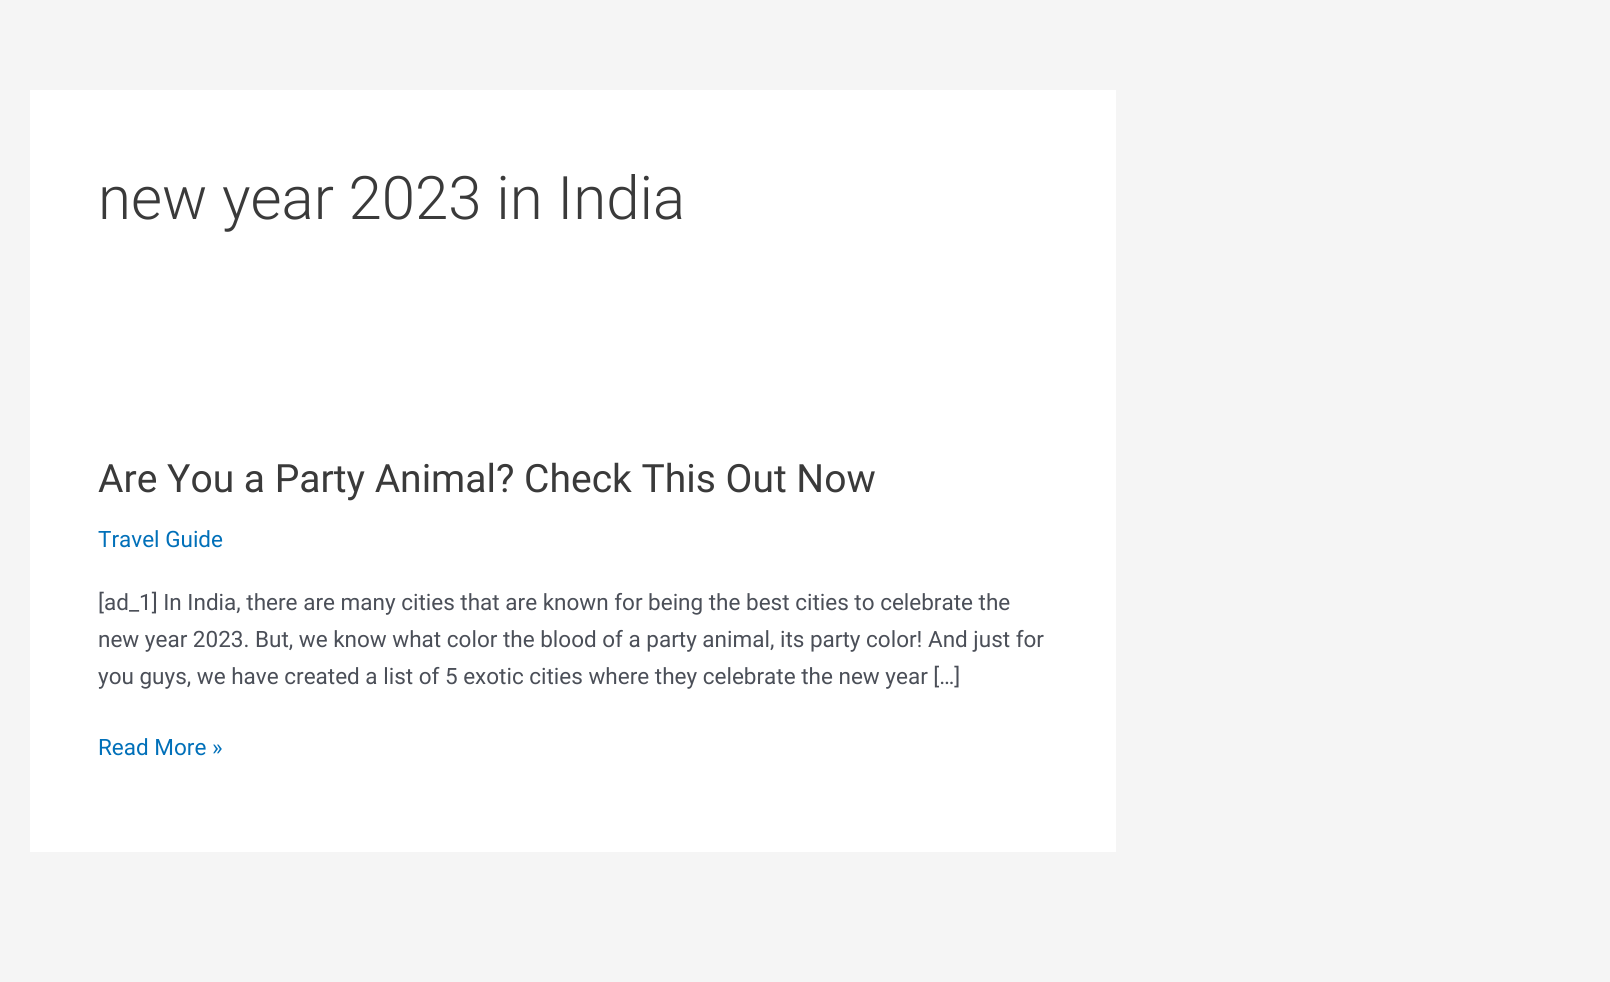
#include <cairo/cairo.h>
#include <math.h>
#include <stddef.h>


static void draw(cairo_t *cr) {
  cairo_set_source_rgb(cr, 245 / 255.0, 245 / 255.0, 245 / 255.0);
  cairo_paint(cr);
  cairo_set_source_rgb(cr, 1, 1, 1);
  cairo_rectangle(cr, 30, 90, 1086, 762);
  cairo_fill(cr);
  cairo_select_font_face(cr, "Roboto Light", CAIRO_FONT_SLANT_NORMAL, CAIRO_FONT_WEIGHT_NORMAL);
  cairo_set_font_size(cr, 60);
  cairo_set_source_rgb(cr, 58 / 255.0, 58 / 255.0, 58 / 255.0);
  cairo_move_to(cr, 98, 219);
  cairo_show_text(cr, "new year 2023 in India");
  cairo_select_font_face(cr, "Roboto", CAIRO_FONT_SLANT_NORMAL, CAIRO_FONT_WEIGHT_NORMAL);
  cairo_set_font_size(cr, 39);
  cairo_move_to(cr, 98, 492);
  cairo_show_text(cr, "Are You a Party Animal? Check This Out Now");
  cairo_set_font_size(cr, 22.5);
  cairo_set_source_rgb(cr, 1 / 255.0, 112 / 255.0, 185 / 255.0);
  cairo_move_to(cr, 98, 547);
  cairo_show_text(cr, "Travel Guide");
  cairo_set_source_rgb(cr, 75 / 255.0, 79 / 255.0, 88 / 255.0);
  cairo_move_to(cr, 98, 610);
  cairo_show_text(cr, "[ad_1] In India, there are many cities that are known for being the best cities to celebrate the");
  cairo_move_to(cr, 98, 647);
  cairo_show_text(cr, "new year 2023. But, we know what color the blood of a party animal, its party color! And just for");
  cairo_move_to(cr, 98, 684);
  cairo_show_text(cr, "you guys, we have created a list of 5 exotic cities where they celebrate the new year […]");
  cairo_set_source_rgb(cr, 1 / 255.0, 112 / 255.0, 185 / 255.0);
  cairo_move_to(cr, 98, 755);
  cairo_show_text(cr, "Read More »");
}

int main(void) {
  cairo_surface_t *surface = cairo_image_surface_create(CAIRO_FORMAT_RGB24, 1610, 982);
  cairo_t *cr = cairo_create(surface);
  cairo_font_options_t *options = cairo_font_options_create();
  cairo_font_options_set_hint_metrics(options, CAIRO_HINT_METRICS_OFF);
  cairo_font_options_set_hint_style(options, CAIRO_HINT_STYLE_NONE);
  cairo_set_font_options(cr, options);
  cairo_set_miter_limit(cr, 4);
  draw(cr);
  cairo_surface_write_to_png(surface, "out.png");
  cairo_font_options_destroy(options);
  cairo_destroy(cr);
  cairo_surface_destroy(surface);
  return 0;
}
